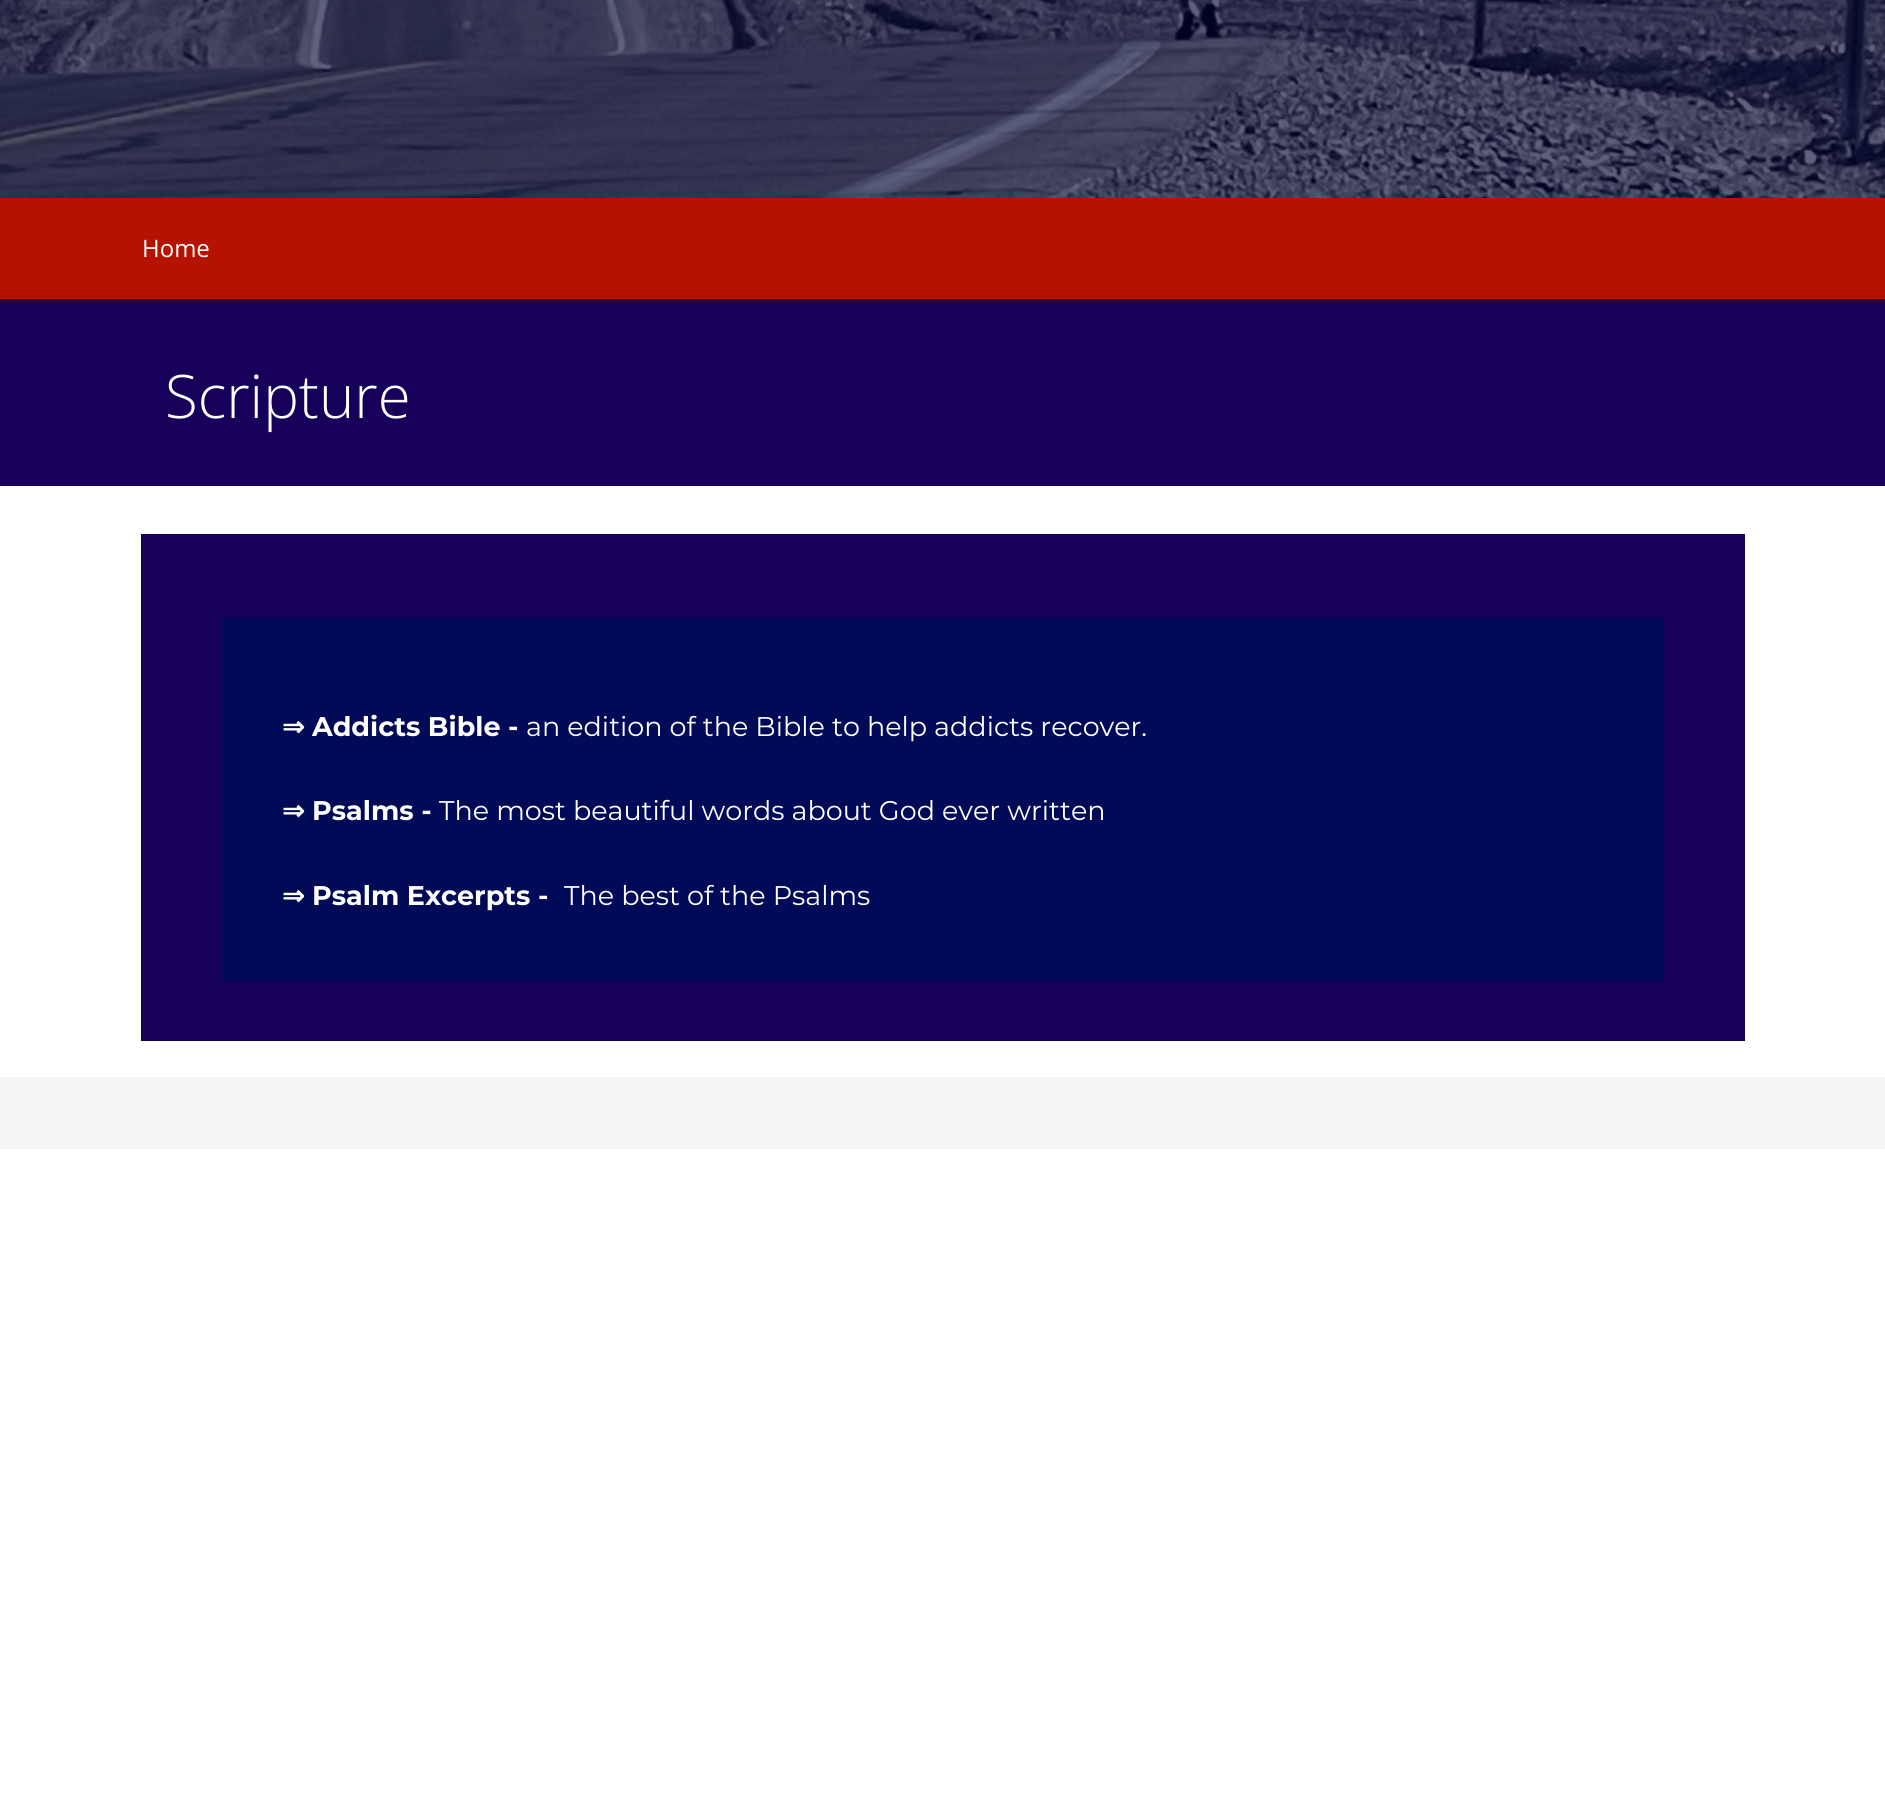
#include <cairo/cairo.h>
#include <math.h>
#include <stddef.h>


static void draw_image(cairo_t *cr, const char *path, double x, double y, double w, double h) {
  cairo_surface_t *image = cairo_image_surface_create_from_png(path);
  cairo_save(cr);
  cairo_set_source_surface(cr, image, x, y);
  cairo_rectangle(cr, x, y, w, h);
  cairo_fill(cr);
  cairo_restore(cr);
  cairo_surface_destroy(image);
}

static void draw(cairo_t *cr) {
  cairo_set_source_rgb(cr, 1, 1, 1);
  cairo_paint(cr);
  draw_image(cr, "images/1.png", 0, 0, 1885, 198);
  cairo_set_source_rgb(cr, 181 / 255.0, 18 / 255.0, 0);
  cairo_rectangle(cr, 0, 198, 1885, 101);
  cairo_fill(cr);
  cairo_set_source_rgb(cr, 23 / 255.0, 0, 89 / 255.0);
  cairo_rectangle(cr, 0, 299, 1885, 187);
  cairo_fill(cr);
  cairo_rectangle(cr, 141, 534, 1604, 507);
  cairo_fill(cr);
  cairo_set_source_rgb(cr, 0, 10 / 255.0, 86 / 255.0);
  cairo_rectangle(cr, 222, 618, 1442, 363);
  cairo_fill(cr);
  cairo_set_source_rgb(cr, 245 / 255.0, 245 / 255.0, 245 / 255.0);
  cairo_rectangle(cr, 0, 1077, 1885, 72);
  cairo_fill(cr);
  cairo_select_font_face(cr, "Open Sans", CAIRO_FONT_SLANT_NORMAL, CAIRO_FONT_WEIGHT_NORMAL);
  cairo_set_font_size(cr, 24);
  cairo_set_source_rgb(cr, 1, 1, 1);
  cairo_move_to(cr, 142, 257);
  cairo_show_text(cr, "Home");
  cairo_select_font_face(cr, "Open Sans Light", CAIRO_FONT_SLANT_NORMAL, CAIRO_FONT_WEIGHT_NORMAL);
  cairo_set_font_size(cr, 60);
  cairo_move_to(cr, 165, 418);
  cairo_show_text(cr, "Scripture");
  cairo_select_font_face(cr, "DejaVu Sans", CAIRO_FONT_SLANT_NORMAL, CAIRO_FONT_WEIGHT_BOLD);
  cairo_set_font_size(cr, 27);
  cairo_move_to(cr, 282, 736);
  cairo_show_text(cr, "⇒");
  cairo_select_font_face(cr, "Montserrat", CAIRO_FONT_SLANT_NORMAL, CAIRO_FONT_WEIGHT_BOLD);
  cairo_move_to(cr, 312, 736);
  cairo_show_text(cr, "Addicts Bible -");
  cairo_select_font_face(cr, "Montserrat", CAIRO_FONT_SLANT_NORMAL, CAIRO_FONT_WEIGHT_NORMAL);
  cairo_move_to(cr, 526, 736);
  cairo_show_text(cr, "an edition of the Bible to help addicts recover.");
  cairo_select_font_face(cr, "DejaVu Sans", CAIRO_FONT_SLANT_NORMAL, CAIRO_FONT_WEIGHT_BOLD);
  cairo_move_to(cr, 282, 820);
  cairo_show_text(cr, "⇒");
  cairo_select_font_face(cr, "Montserrat", CAIRO_FONT_SLANT_NORMAL, CAIRO_FONT_WEIGHT_BOLD);
  cairo_move_to(cr, 312, 820);
  cairo_show_text(cr, "Psalms -");
  cairo_select_font_face(cr, "Montserrat", CAIRO_FONT_SLANT_NORMAL, CAIRO_FONT_WEIGHT_NORMAL);
  cairo_move_to(cr, 439, 820);
  cairo_show_text(cr, "The most beautiful words about God ever written");
  cairo_select_font_face(cr, "DejaVu Sans", CAIRO_FONT_SLANT_NORMAL, CAIRO_FONT_WEIGHT_BOLD);
  cairo_move_to(cr, 282, 905);
  cairo_show_text(cr, "⇒");
  cairo_select_font_face(cr, "Montserrat", CAIRO_FONT_SLANT_NORMAL, CAIRO_FONT_WEIGHT_BOLD);
  cairo_move_to(cr, 312, 905);
  cairo_show_text(cr, "Psalm Excerpts -");
  cairo_select_font_face(cr, "Montserrat", CAIRO_FONT_SLANT_NORMAL, CAIRO_FONT_WEIGHT_NORMAL);
  cairo_move_to(cr, 564, 905);
  cairo_show_text(cr, "The best of the Psalms");
}

int main(void) {
  cairo_surface_t *surface = cairo_image_surface_create(CAIRO_FORMAT_RGB24, 1885, 1798);
  cairo_t *cr = cairo_create(surface);
  cairo_font_options_t *options = cairo_font_options_create();
  cairo_font_options_set_hint_metrics(options, CAIRO_HINT_METRICS_OFF);
  cairo_font_options_set_hint_style(options, CAIRO_HINT_STYLE_NONE);
  cairo_set_font_options(cr, options);
  cairo_set_miter_limit(cr, 4);
  draw(cr);
  cairo_surface_write_to_png(surface, "out.png");
  cairo_font_options_destroy(options);
  cairo_destroy(cr);
  cairo_surface_destroy(surface);
  return 0;
}
